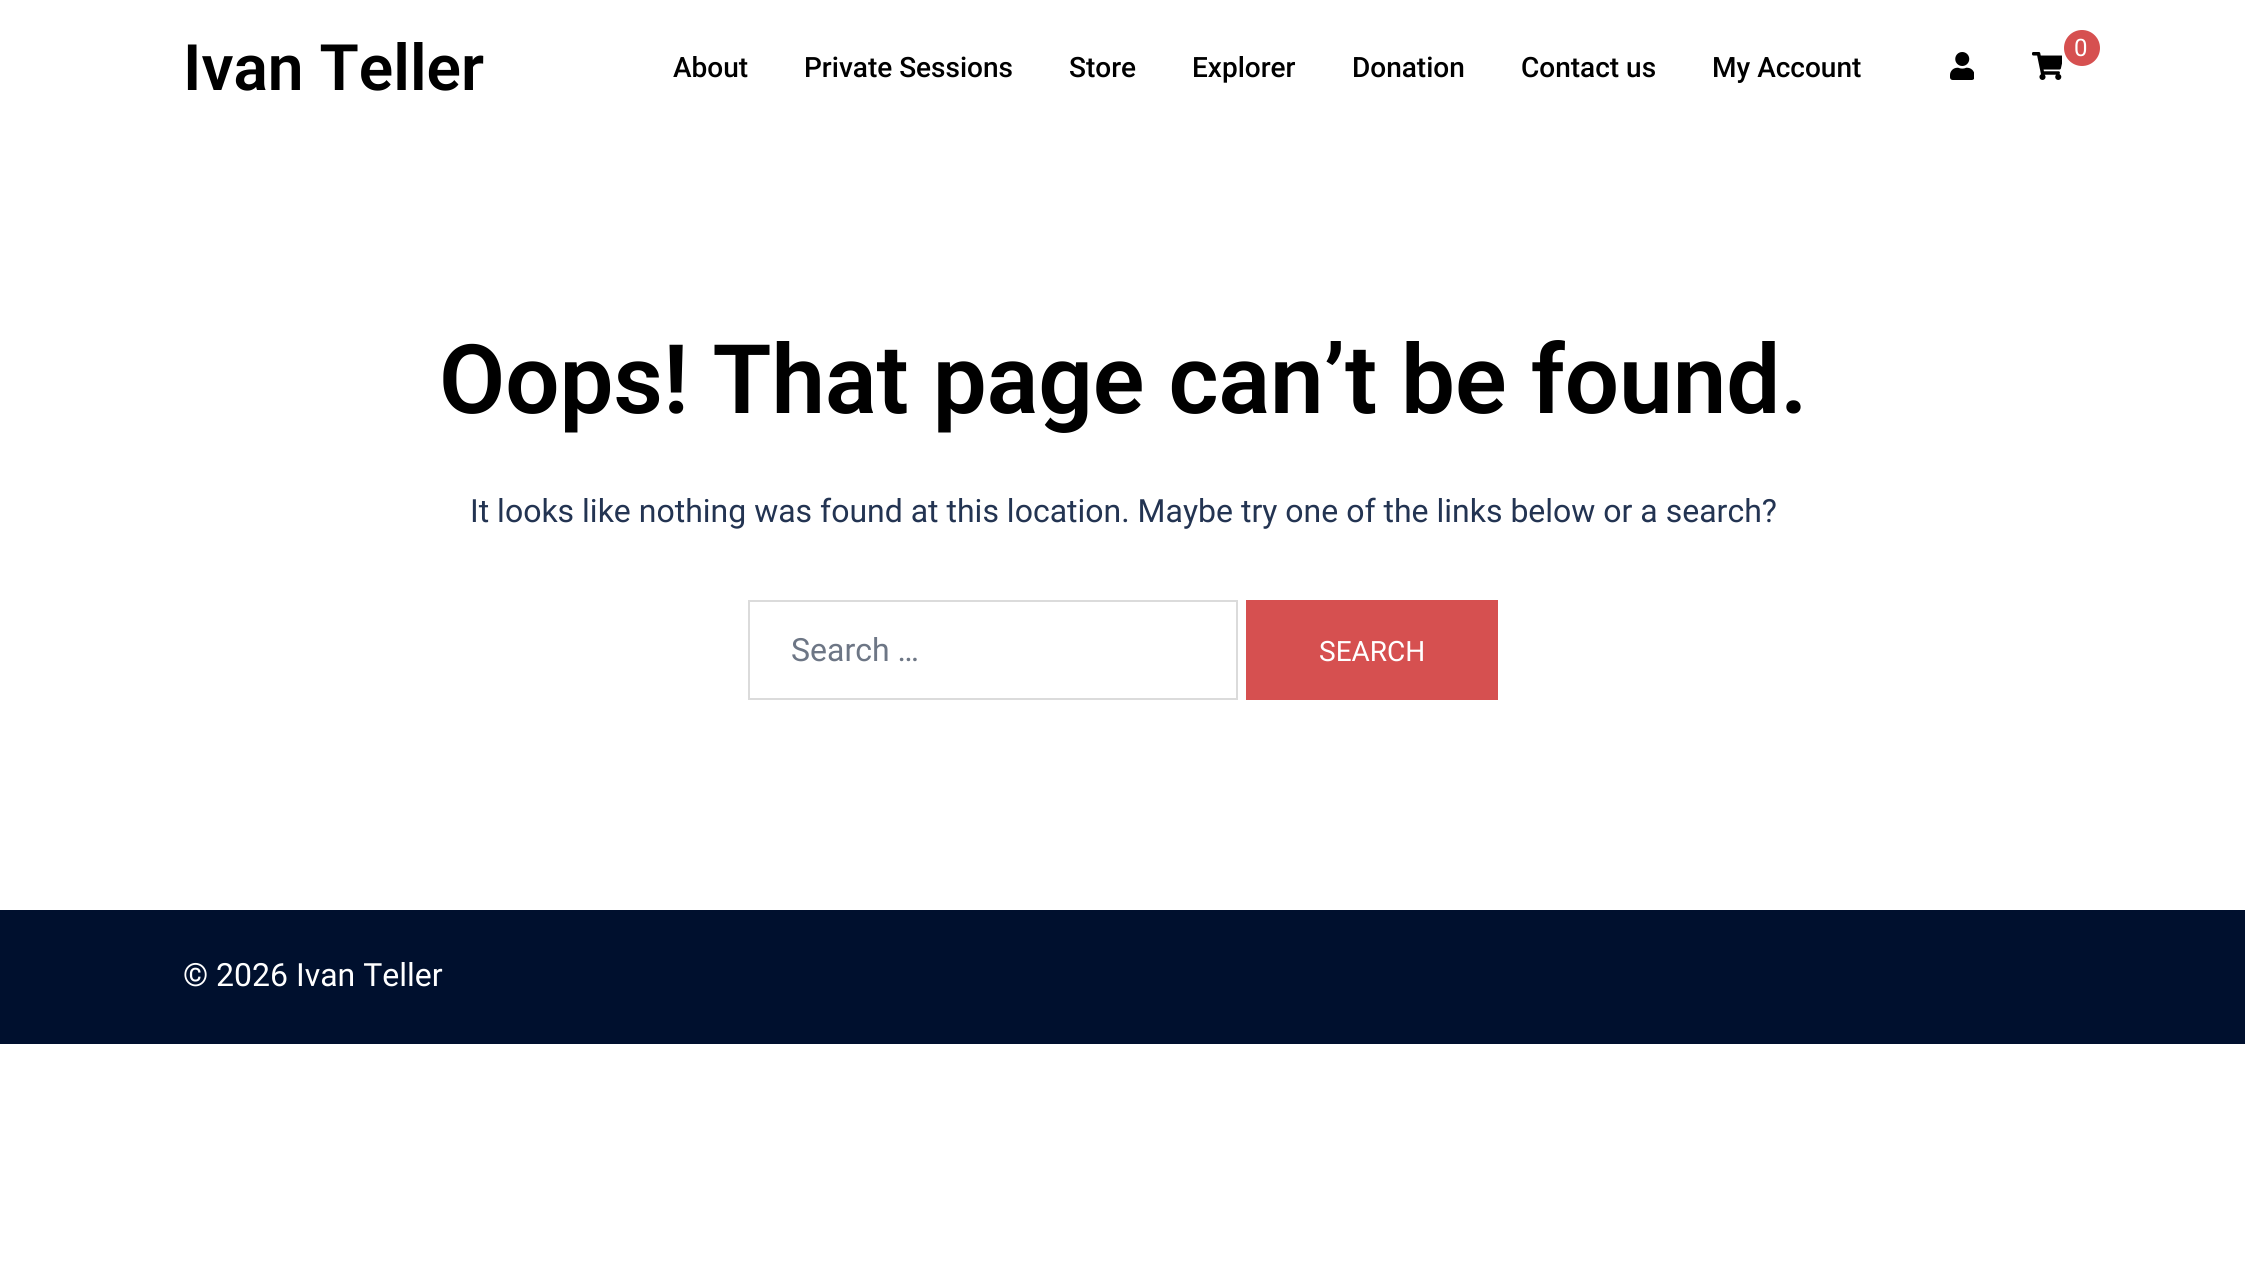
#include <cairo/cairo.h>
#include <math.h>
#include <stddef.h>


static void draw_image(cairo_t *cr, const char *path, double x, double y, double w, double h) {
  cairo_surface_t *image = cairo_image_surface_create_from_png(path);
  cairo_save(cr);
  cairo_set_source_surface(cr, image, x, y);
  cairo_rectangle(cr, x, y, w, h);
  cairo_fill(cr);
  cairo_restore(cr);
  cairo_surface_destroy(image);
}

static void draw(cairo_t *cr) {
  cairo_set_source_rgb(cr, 1, 1, 1);
  cairo_paint(cr);
  cairo_set_source_rgb(cr, 214 / 255.0, 80 / 255.0, 80 / 255.0);
  cairo_arc(cr, 2082, 48, 18, 0, 2 * M_PI);
  cairo_fill(cr);
  draw_image(cr, "images/1.png", 2032, 52, 30, 28);
  draw_image(cr, "images/2.png", 1950, 52, 24, 28);
  cairo_rectangle(cr, 749, 601, 488, 98);
  cairo_set_source_rgb(cr, 219 / 255.0, 219 / 255.0, 219 / 255.0);
  cairo_stroke(cr);
  cairo_set_source_rgb(cr, 214 / 255.0, 80 / 255.0, 80 / 255.0);
  cairo_rectangle(cr, 1246, 600, 252, 100);
  cairo_fill(cr);
  cairo_set_source_rgb(cr, 0, 16 / 255.0, 46 / 255.0);
  cairo_rectangle(cr, 0, 910, 2245, 134);
  cairo_fill(cr);
  cairo_select_font_face(cr, "Roboto SemiBold", CAIRO_FONT_SLANT_NORMAL, CAIRO_FONT_WEIGHT_NORMAL);
  cairo_set_font_size(cr, 64);
  cairo_set_source_rgb(cr, 0, 0, 0);
  cairo_move_to(cr, 183, 90);
  cairo_show_text(cr, "Ivan Teller");
  cairo_select_font_face(cr, "Roboto Medium", CAIRO_FONT_SLANT_NORMAL, CAIRO_FONT_WEIGHT_NORMAL);
  cairo_set_font_size(cr, 28);
  cairo_move_to(cr, 673, 77);
  cairo_show_text(cr, "About");
  cairo_move_to(cr, 804, 77);
  cairo_show_text(cr, "Private Sessions");
  cairo_move_to(cr, 1069, 77);
  cairo_show_text(cr, "Store");
  cairo_move_to(cr, 1192, 77);
  cairo_show_text(cr, "Explorer");
  cairo_move_to(cr, 1352, 77);
  cairo_show_text(cr, "Donation");
  cairo_move_to(cr, 1521, 77);
  cairo_show_text(cr, "Contact us");
  cairo_move_to(cr, 1712, 77);
  cairo_show_text(cr, "My Account");
  cairo_select_font_face(cr, "Roboto", CAIRO_FONT_SLANT_NORMAL, CAIRO_FONT_WEIGHT_NORMAL);
  cairo_set_font_size(cr, 24);
  cairo_set_source_rgb(cr, 1, 1, 1);
  cairo_move_to(cr, 2074, 56);
  cairo_show_text(cr, "0");
  cairo_select_font_face(cr, "Roboto SemiBold", CAIRO_FONT_SLANT_NORMAL, CAIRO_FONT_WEIGHT_NORMAL);
  cairo_set_font_size(cr, 96);
  cairo_set_source_rgb(cr, 0, 0, 0);
  cairo_move_to(cr, 439, 413);
  cairo_show_text(cr, "Oops! That page can’t be found.");
  cairo_select_font_face(cr, "Roboto", CAIRO_FONT_SLANT_NORMAL, CAIRO_FONT_WEIGHT_NORMAL);
  cairo_set_font_size(cr, 32);
  cairo_set_source_rgb(cr, 35 / 255.0, 52 / 255.0, 82 / 255.0);
  cairo_move_to(cr, 470, 522);
  cairo_show_text(cr, "It looks like nothing was found at this location. Maybe try one of the links below or a search?");
  cairo_set_source_rgb(cr, 109 / 255.0, 118 / 255.0, 133 / 255.0);
  cairo_move_to(cr, 791, 661);
  cairo_show_text(cr, "Search …");
  cairo_set_font_size(cr, 28);
  cairo_set_source_rgb(cr, 1, 1, 1);
  cairo_move_to(cr, 1319, 661);
  cairo_show_text(cr, "SEARCH");
  cairo_set_font_size(cr, 32);
  cairo_move_to(cr, 183, 986);
  cairo_show_text(cr, "© 2026 Ivan Teller");
}

int main(void) {
  cairo_surface_t *surface = cairo_image_surface_create(CAIRO_FORMAT_RGB24, 2245, 1288);
  cairo_t *cr = cairo_create(surface);
  cairo_font_options_t *options = cairo_font_options_create();
  cairo_font_options_set_hint_metrics(options, CAIRO_HINT_METRICS_OFF);
  cairo_font_options_set_hint_style(options, CAIRO_HINT_STYLE_NONE);
  cairo_set_font_options(cr, options);
  cairo_set_miter_limit(cr, 4);
  draw(cr);
  cairo_surface_write_to_png(surface, "out.png");
  cairo_font_options_destroy(options);
  cairo_destroy(cr);
  cairo_surface_destroy(surface);
  return 0;
}
